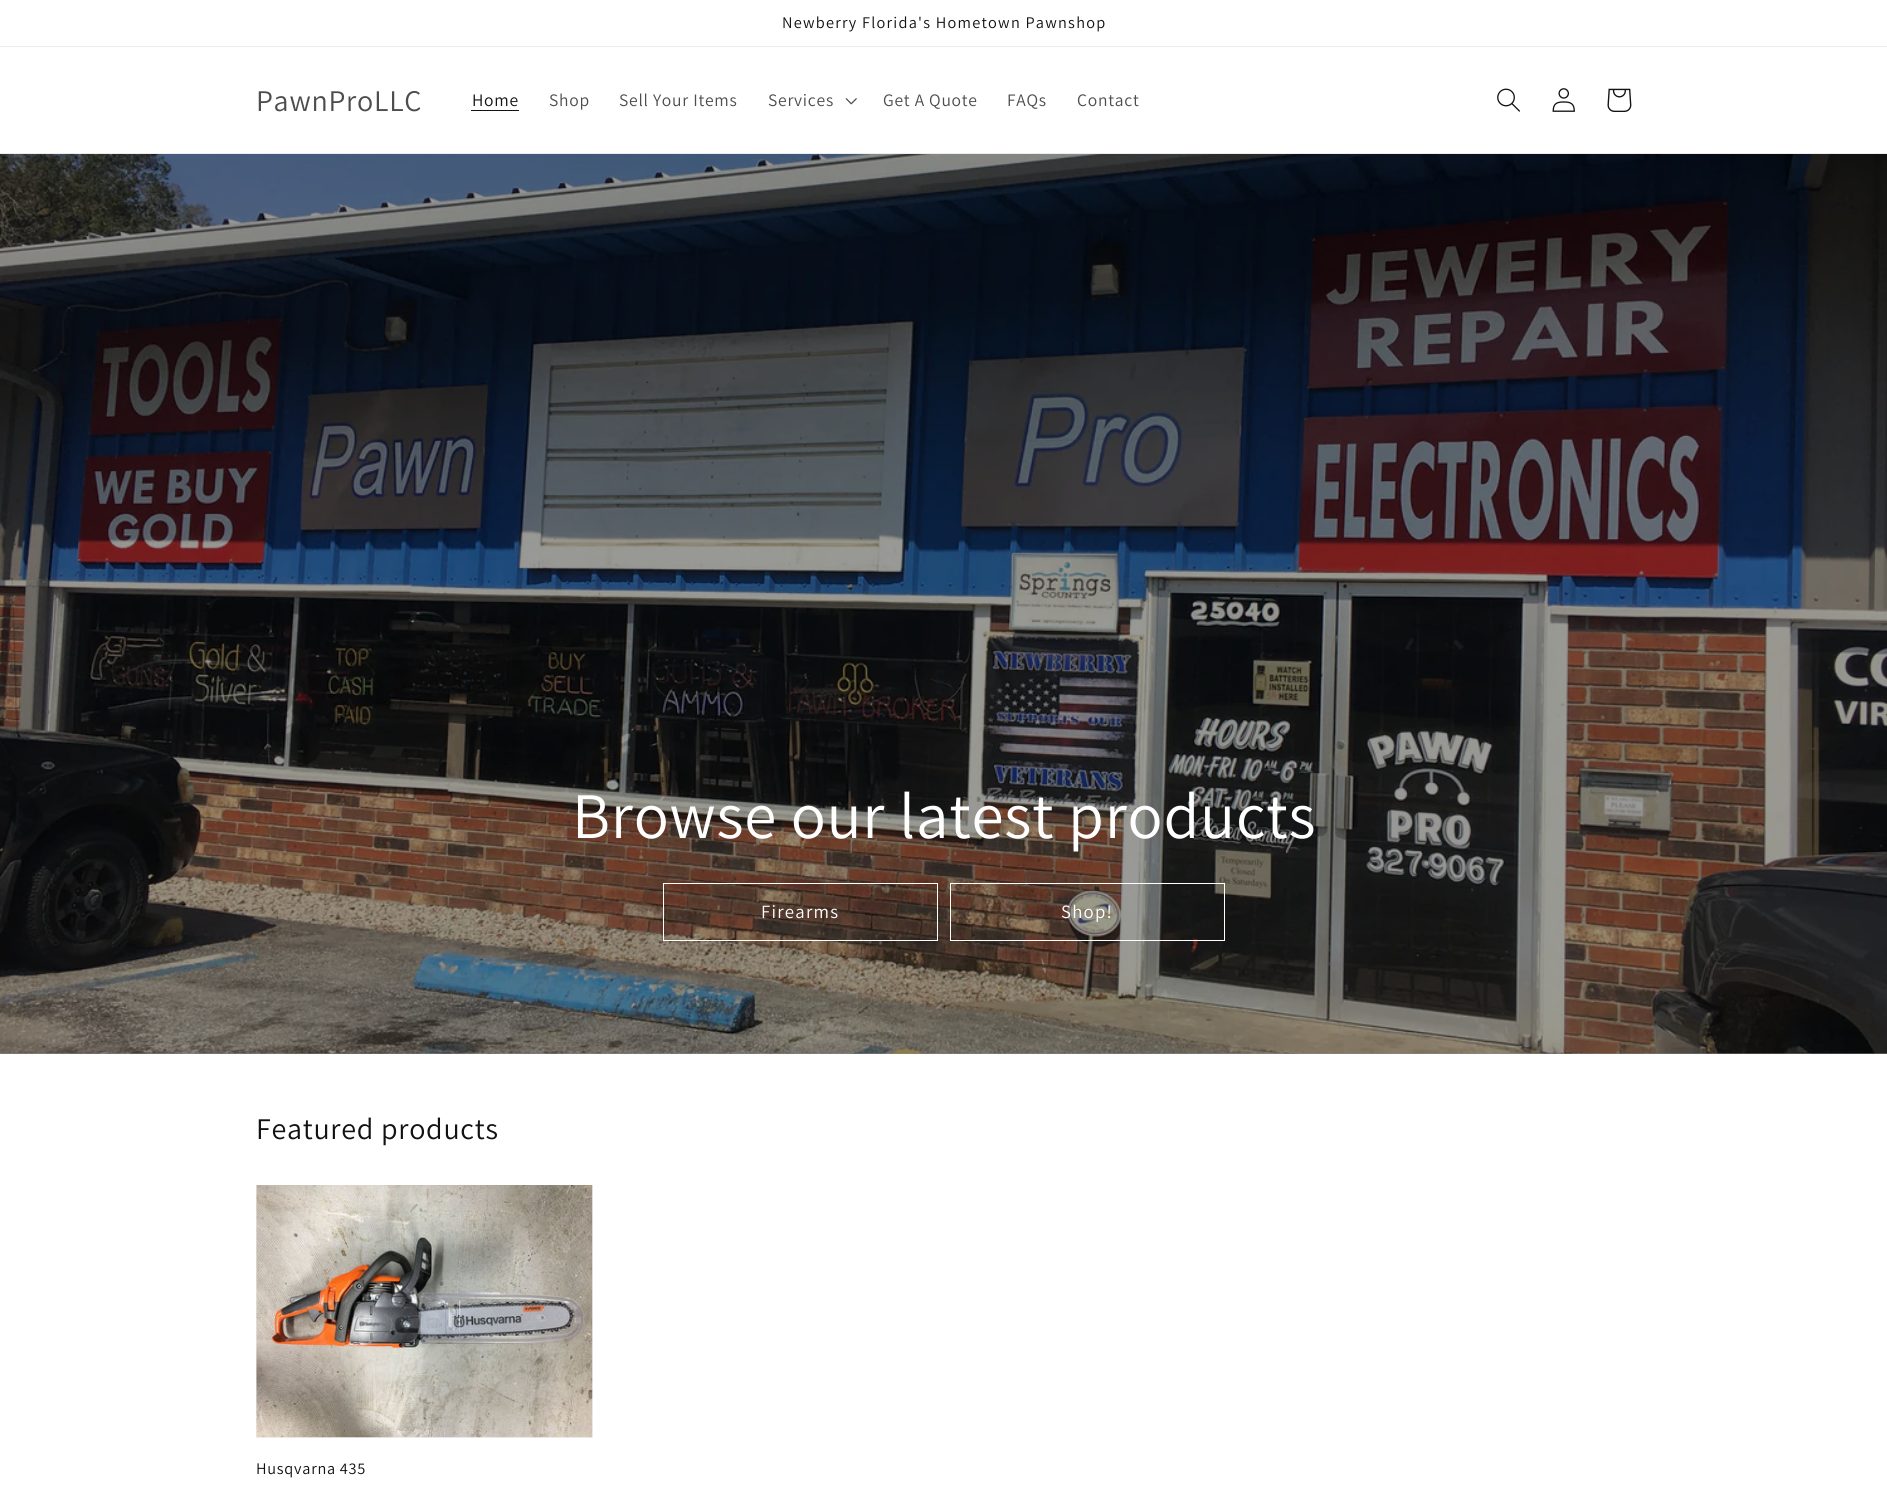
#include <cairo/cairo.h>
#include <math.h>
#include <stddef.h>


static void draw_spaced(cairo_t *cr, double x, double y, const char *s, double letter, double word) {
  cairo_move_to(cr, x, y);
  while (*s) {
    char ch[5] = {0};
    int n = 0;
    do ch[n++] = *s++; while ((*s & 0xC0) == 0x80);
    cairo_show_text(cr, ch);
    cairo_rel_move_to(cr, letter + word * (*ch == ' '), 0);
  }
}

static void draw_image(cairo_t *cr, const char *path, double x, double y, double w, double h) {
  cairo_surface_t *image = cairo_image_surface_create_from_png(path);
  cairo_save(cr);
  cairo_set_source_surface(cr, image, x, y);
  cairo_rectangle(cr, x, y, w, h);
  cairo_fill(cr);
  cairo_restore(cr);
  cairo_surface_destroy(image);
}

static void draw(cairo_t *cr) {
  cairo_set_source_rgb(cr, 1, 1, 1);
  cairo_paint(cr);
  cairo_set_source_rgb(cr, 236 / 255.0, 236 / 255.0, 236 / 255.0);
  cairo_rectangle(cr, 0, 46, 1887, 1);
  cairo_fill(cr);
  cairo_rectangle(cr, 0, 153, 1887, 1);
  cairo_fill(cr);
  cairo_set_source_rgb(cr, 18 / 255.0, 18 / 255.0, 18 / 255.0);
  cairo_rectangle(cr, 471, 110, 48, 1);
  cairo_fill(cr);
  draw_image(cr, "images/1.png", 845, 98, 12, 7);
  draw_image(cr, "images/2.png", 1497, 88, 23, 24);
  draw_image(cr, "images/3.png", 1552, 88, 23, 24);
  draw_image(cr, "images/4.png", 1607, 88, 25, 24);
  cairo_set_source_rgb(cr, 139 / 255.0, 139 / 255.0, 139 / 255.0);
  cairo_rectangle(cr, 0, 1053, 1887, 1);
  cairo_fill(cr);
  draw_image(cr, "images/5.png", 0, 154, 1887, 900);
  cairo_rectangle(cr, 663.5, 883.5, 274, 57);
  cairo_set_source_rgb(cr, 1, 1, 1);
  cairo_set_line_width(cr, 1);
  cairo_stroke(cr);
  cairo_rectangle(cr, 950.5, 883.5, 274, 57);
  cairo_stroke(cr);
  cairo_set_source_rgb(cr, 243 / 255.0, 243 / 255.0, 243 / 255.0);
  cairo_rectangle(cr, 256, 1185, 337, 253);
  cairo_fill(cr);
  draw_image(cr, "images/6.png", 256, 1185, 337, 253);
  cairo_select_font_face(cr, "Assistant", CAIRO_FONT_SLANT_NORMAL, CAIRO_FONT_WEIGHT_NORMAL);
  cairo_set_font_size(cr, 16.25);
  cairo_set_source_rgb(cr, 18 / 255.0, 18 / 255.0, 18 / 255.0);
  draw_spaced(cr, 782, 28, "Newberry Florida's Hometown Pawnshop", 1.25, 0);
  cairo_set_font_size(cr, 30);
  cairo_set_source_rgb(cr, 77 / 255.0, 77 / 255.0, 77 / 255.0);
  draw_spaced(cr, 256, 111, "PawnProLLC", 0.75, 0);
  cairo_set_font_size(cr, 17.5);
  cairo_set_source_rgb(cr, 18 / 255.0, 18 / 255.0, 18 / 255.0);
  draw_spaced(cr, 472, 106, "Home", 0.75, 0);
  cairo_set_source_rgb(cr, 77 / 255.0, 77 / 255.0, 77 / 255.0);
  draw_spaced(cr, 549, 106, "Shop", 0.75, 0);
  draw_spaced(cr, 619, 106, "Sell Your Items", 0.75, 0);
  draw_spaced(cr, 768, 106, "Services", 0.75, 0);
  draw_spaced(cr, 883, 106, "Get A Quote", 0.75, 0);
  draw_spaced(cr, 1007, 106, "FAQs", 0.75, 0);
  draw_spaced(cr, 1077, 106, "Contact", 0.75, 0);
  cairo_set_font_size(cr, 65);
  cairo_set_source_rgb(cr, 1, 1, 1);
  draw_spaced(cr, 572, 838, "Browse our latest products", 0.75, 0);
  cairo_set_font_size(cr, 18.75);
  draw_spaced(cr, 761, 918, "Firearms", 1.25, 0);
  draw_spaced(cr, 1061, 918, "Shop!", 1.25, 0);
  cairo_set_font_size(cr, 30);
  cairo_set_source_rgb(cr, 18 / 255.0, 18 / 255.0, 18 / 255.0);
  draw_spaced(cr, 256, 1139, "Featured products", 0.75, 0);
  cairo_set_font_size(cr, 16.25);
  draw_spaced(cr, 256, 1474, "Husqvarna 435", 0.75, 0);
}

int main(void) {
  cairo_surface_t *surface = cairo_image_surface_create(CAIRO_FORMAT_RGB24, 1887, 1488);
  cairo_t *cr = cairo_create(surface);
  cairo_font_options_t *options = cairo_font_options_create();
  cairo_font_options_set_hint_metrics(options, CAIRO_HINT_METRICS_OFF);
  cairo_font_options_set_hint_style(options, CAIRO_HINT_STYLE_NONE);
  cairo_set_font_options(cr, options);
  cairo_set_miter_limit(cr, 4);
  draw(cr);
  cairo_surface_write_to_png(surface, "out.png");
  cairo_font_options_destroy(options);
  cairo_destroy(cr);
  cairo_surface_destroy(surface);
  return 0;
}
